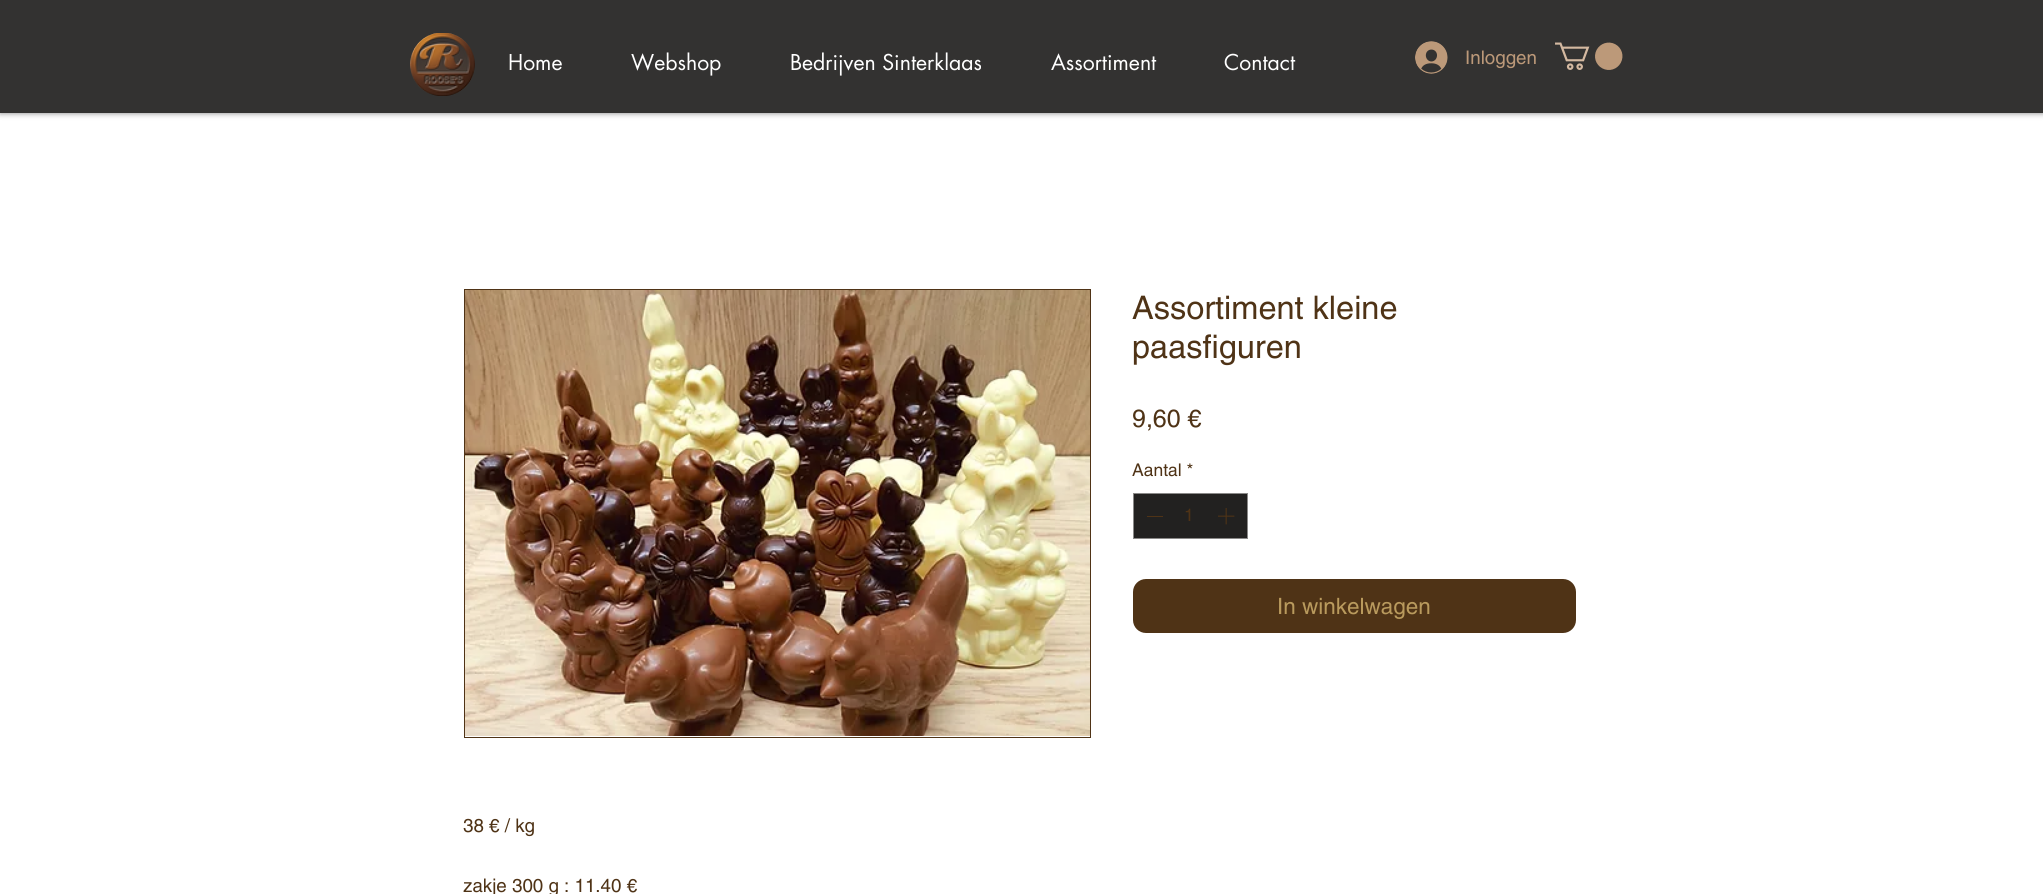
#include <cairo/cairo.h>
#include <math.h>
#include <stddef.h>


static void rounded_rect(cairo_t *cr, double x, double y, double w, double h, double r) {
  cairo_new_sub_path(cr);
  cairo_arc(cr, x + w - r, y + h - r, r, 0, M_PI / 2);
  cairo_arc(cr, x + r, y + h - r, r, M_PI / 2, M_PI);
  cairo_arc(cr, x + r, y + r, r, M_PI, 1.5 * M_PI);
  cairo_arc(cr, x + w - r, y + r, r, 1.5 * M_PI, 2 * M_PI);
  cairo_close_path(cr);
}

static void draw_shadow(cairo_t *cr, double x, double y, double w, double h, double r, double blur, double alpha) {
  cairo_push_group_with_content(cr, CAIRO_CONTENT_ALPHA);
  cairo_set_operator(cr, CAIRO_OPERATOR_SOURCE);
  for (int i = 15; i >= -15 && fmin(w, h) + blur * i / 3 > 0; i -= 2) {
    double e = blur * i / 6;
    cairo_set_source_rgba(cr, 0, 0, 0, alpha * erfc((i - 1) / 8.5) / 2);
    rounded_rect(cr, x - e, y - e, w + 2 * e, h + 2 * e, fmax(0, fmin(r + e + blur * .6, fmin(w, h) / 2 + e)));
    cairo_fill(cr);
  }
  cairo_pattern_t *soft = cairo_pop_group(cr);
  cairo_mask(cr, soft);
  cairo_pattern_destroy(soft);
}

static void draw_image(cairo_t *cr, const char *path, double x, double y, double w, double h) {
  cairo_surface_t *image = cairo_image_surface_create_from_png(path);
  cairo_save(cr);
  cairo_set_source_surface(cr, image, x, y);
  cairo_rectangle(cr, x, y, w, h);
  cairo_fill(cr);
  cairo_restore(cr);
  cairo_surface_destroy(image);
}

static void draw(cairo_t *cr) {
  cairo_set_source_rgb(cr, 1, 1, 1);
  cairo_paint(cr);
  cairo_save(cr);
  cairo_set_fill_rule(cr, CAIRO_FILL_RULE_EVEN_ODD);
  cairo_new_path(cr);
  cairo_move_to(cr, 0, 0);
  cairo_line_to(cr, 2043, 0);
  cairo_line_to(cr, 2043, 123);
  cairo_line_to(cr, 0, 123);
  cairo_close_path(cr);
  cairo_move_to(cr, 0, 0);
  cairo_line_to(cr, 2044, 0);
  cairo_line_to(cr, 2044, 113);
  cairo_line_to(cr, 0, 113);
  cairo_close_path(cr);
  cairo_clip(cr);
  cairo_set_source_rgb(cr, 0, 0, 0);
  draw_shadow(cr, 0, 0, 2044, 113, 0, 3, 0.5);
  cairo_restore(cr);
  cairo_set_source_rgba(cr, 34 / 255.0, 33 / 255.0, 32 / 255.0, 0.92);
  cairo_rectangle(cr, 0, 0, 2043, 113);
  cairo_fill(cr);
  draw_image(cr, "images/1.png", 410, 33, 65, 63);
  draw_image(cr, "images/2.png", 1415, 41, 33, 33);
  draw_image(cr, "images/3.png", 1555, 42, 68, 28);
  cairo_set_source_rgb(cr, 34 / 255.0, 33 / 255.0, 32 / 255.0);
  cairo_rectangle(cr, 1133.5, 493.5, 114, 45);
  cairo_fill_preserve(cr);
  cairo_set_source_rgb(cr, 138 / 255.0, 137 / 255.0, 136 / 255.0);
  cairo_set_line_width(cr, 1);
  cairo_stroke(cr);
  cairo_set_source_rgb(cr, 79 / 255.0, 51 / 255.0, 22 / 255.0);
  cairo_rectangle(cr, 1147, 516, 16, 1);
  cairo_fill(cr);
  draw_image(cr, "images/4.png", 1218, 508, 17, 17);
  rounded_rect(cr, 1133, 579, 443, 54, 13);
  cairo_fill(cr);
  cairo_rectangle(cr, 464.5, 289.5, 626, 448);
  cairo_stroke(cr);
  draw_image(cr, "images/5.png", 465, 290, 625, 446);
  cairo_select_font_face(cr, "futura", CAIRO_FONT_SLANT_NORMAL, CAIRO_FONT_WEIGHT_NORMAL);
  cairo_set_font_size(cr, 21.25);
  cairo_set_source_rgb(cr, 1, 1, 1);
  cairo_move_to(cr, 508, 70);
  cairo_show_text(cr, "Home");
  cairo_move_to(cr, 631, 70);
  cairo_show_text(cr, "Webshop");
  cairo_move_to(cr, 790, 70);
  cairo_show_text(cr, "Bedrijven Sinterklaas");
  cairo_move_to(cr, 1051, 70);
  cairo_show_text(cr, "Assortiment");
  cairo_move_to(cr, 1224, 70);
  cairo_show_text(cr, "Contact");
  cairo_select_font_face(cr, "helvetica", CAIRO_FONT_SLANT_NORMAL, CAIRO_FONT_WEIGHT_NORMAL);
  cairo_set_font_size(cr, 18.75);
  cairo_set_source_rgb(cr, 188 / 255.0, 153 / 255.0, 121 / 255.0);
  cairo_move_to(cr, 1465, 64);
  cairo_show_text(cr, "Inloggen");
  cairo_set_font_size(cr, 32.5);
  cairo_set_source_rgb(cr, 79 / 255.0, 51 / 255.0, 22 / 255.0);
  cairo_move_to(cr, 1132, 319);
  cairo_show_text(cr, "Assortiment kleine");
  cairo_move_to(cr, 1132, 358);
  cairo_show_text(cr, "paasfiguren");
  cairo_set_font_size(cr, 25);
  cairo_move_to(cr, 1132, 427);
  cairo_show_text(cr, "9,60 €");
  cairo_set_font_size(cr, 17.5);
  cairo_move_to(cr, 1132, 476);
  cairo_show_text(cr, "Aantal *");
  cairo_move_to(cr, 1184, 521);
  cairo_show_text(cr, "1");
  cairo_set_font_size(cr, 22.5);
  cairo_set_source_rgb(cr, 185 / 255.0, 154 / 255.0, 93 / 255.0);
  cairo_move_to(cr, 1277, 614);
  cairo_show_text(cr, "In winkelwagen");
  cairo_set_font_size(cr, 18.75);
  cairo_set_source_rgb(cr, 79 / 255.0, 51 / 255.0, 22 / 255.0);
  cairo_move_to(cr, 463, 832);
  cairo_show_text(cr, "38 € / kg");
  cairo_move_to(cr, 463, 892);
  cairo_show_text(cr, "zakje 300 g : 11.40 €");
}

int main(void) {
  cairo_surface_t *surface = cairo_image_surface_create(CAIRO_FORMAT_RGB24, 2043, 894);
  cairo_t *cr = cairo_create(surface);
  cairo_font_options_t *options = cairo_font_options_create();
  cairo_font_options_set_hint_metrics(options, CAIRO_HINT_METRICS_OFF);
  cairo_font_options_set_hint_style(options, CAIRO_HINT_STYLE_NONE);
  cairo_set_font_options(cr, options);
  cairo_set_miter_limit(cr, 4);
  draw(cr);
  cairo_surface_write_to_png(surface, "out.png");
  cairo_font_options_destroy(options);
  cairo_destroy(cr);
  cairo_surface_destroy(surface);
  return 0;
}
